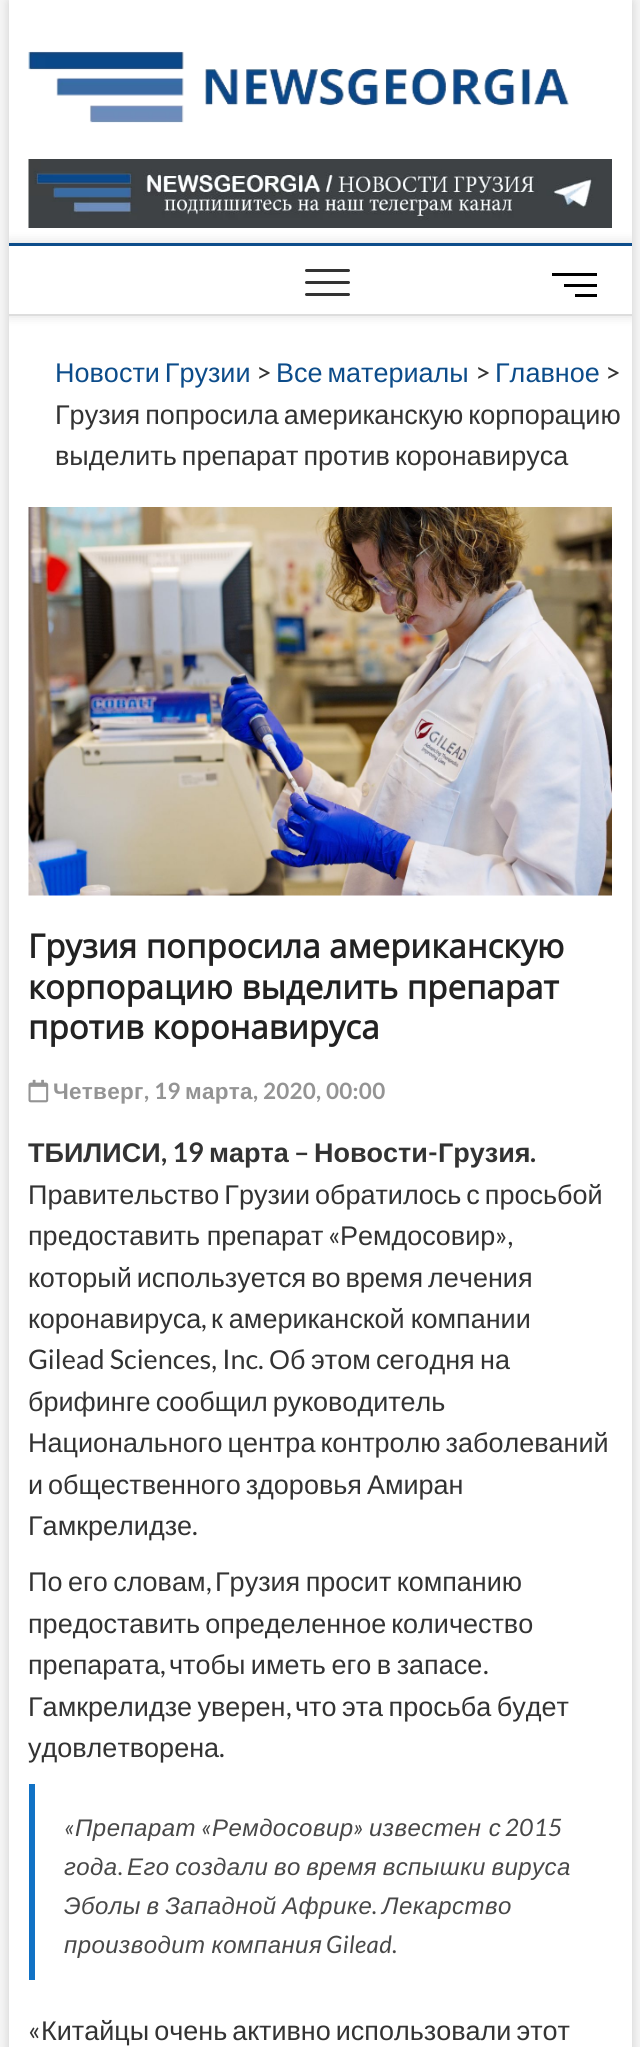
#include <cairo/cairo.h>
#include <math.h>
#include <stddef.h>


static void draw_spaced(cairo_t *cr, double x, double y, const char *s, double letter, double word) {
  cairo_move_to(cr, x, y);
  while (*s) {
    char ch[5] = {0};
    int n = 0;
    do ch[n++] = *s++; while ((*s & 0xC0) == 0x80);
    cairo_show_text(cr, ch);
    cairo_rel_move_to(cr, letter + word * (*ch == ' '), 0);
  }
}

static void rounded_rect(cairo_t *cr, double x, double y, double w, double h, double r) {
  cairo_new_sub_path(cr);
  cairo_arc(cr, x + w - r, y + h - r, r, 0, M_PI / 2);
  cairo_arc(cr, x + r, y + h - r, r, M_PI / 2, M_PI);
  cairo_arc(cr, x + r, y + r, r, M_PI, 1.5 * M_PI);
  cairo_arc(cr, x + w - r, y + r, r, 1.5 * M_PI, 2 * M_PI);
  cairo_close_path(cr);
}

static void draw_shadow(cairo_t *cr, double x, double y, double w, double h, double r, double blur, double alpha) {
  cairo_push_group_with_content(cr, CAIRO_CONTENT_ALPHA);
  cairo_set_operator(cr, CAIRO_OPERATOR_SOURCE);
  for (int i = 15; i >= -15 && fmin(w, h) + blur * i / 3 > 0; i -= 2) {
    double e = blur * i / 6;
    cairo_set_source_rgba(cr, 0, 0, 0, alpha * erfc((i - 1) / 8.5) / 2);
    rounded_rect(cr, x - e, y - e, w + 2 * e, h + 2 * e, fmax(0, fmin(r + e + blur * .6, fmin(w, h) / 2 + e)));
    cairo_fill(cr);
  }
  cairo_pattern_t *soft = cairo_pop_group(cr);
  cairo_mask(cr, soft);
  cairo_pattern_destroy(soft);
}

static void draw_image(cairo_t *cr, const char *path, double x, double y, double w, double h) {
  cairo_surface_t *image = cairo_image_surface_create_from_png(path);
  cairo_save(cr);
  cairo_set_source_surface(cr, image, x, y);
  cairo_rectangle(cr, x, y, w, h);
  cairo_fill(cr);
  cairo_restore(cr);
  cairo_surface_destroy(image);
}

static void draw(cairo_t *cr) {
  cairo_set_source_rgb(cr, 244 / 255.0, 244 / 255.0, 244 / 255.0);
  cairo_paint(cr);
  cairo_set_source_rgb(cr, 0, 0, 0);
  draw_shadow(cr, 9, 2, 623, 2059, 0, 4.5, 0.15);
  cairo_set_source_rgb(cr, 1, 1, 1);
  cairo_rectangle(cr, 9, 0, 623, 2047);
  cairo_fill(cr);
  draw_image(cr, "images/1.png", 28, 51, 541, 72);
  draw_image(cr, "images/2.png", 28, 159, 584, 69);
  cairo_save(cr);
  cairo_rectangle(cr, 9, 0, 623, 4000);
  cairo_clip(cr);
  cairo_set_source_rgb(cr, 0, 0, 0);
  draw_shadow(cr, 9, 243, 623, 72, 0, 6, 0.15);
  cairo_restore(cr);
  cairo_rectangle(cr, 9, 246, 623, 68);
  cairo_fill(cr);
  cairo_set_source_rgb(cr, 12 / 255.0, 76 / 255.0, 138 / 255.0);
  cairo_rectangle(cr, 9, 243, 623, 3);
  cairo_fill(cr);
  cairo_set_source_rgb(cr, 221 / 255.0, 221 / 255.0, 221 / 255.0);
  cairo_rectangle(cr, 9, 314, 623, 2);
  cairo_fill(cr);
  cairo_set_source_rgb(cr, 51 / 255.0, 51 / 255.0, 51 / 255.0);
  rounded_rect(cr, 305, 281, 45, 3, 1.5);
  cairo_fill(cr);
  rounded_rect(cr, 305, 269, 45, 3, 1.5);
  cairo_fill(cr);
  rounded_rect(cr, 305, 293, 45, 3, 1.5);
  cairo_fill(cr);
  cairo_set_source_rgb(cr, 0, 0, 0);
  cairo_rectangle(cr, 564, 284, 33, 3);
  cairo_fill(cr);
  cairo_rectangle(cr, 552, 273, 45, 3);
  cairo_fill(cr);
  cairo_rectangle(cr, 575, 294, 22, 3);
  cairo_fill(cr);
  draw_image(cr, "images/3.png", 28, 507, 584, 389);
  draw_image(cr, "images/4.png", 28, 1079, 21, 24);
  cairo_set_source_rgb(cr, 17 / 255.0, 114 / 255.0, 197 / 255.0);
  cairo_rectangle(cr, 29, 1784, 6, 196);
  cairo_fill(cr);
  cairo_select_font_face(cr, "Liberation Sans", CAIRO_FONT_SLANT_NORMAL, CAIRO_FONT_WEIGHT_NORMAL);
  cairo_set_font_size(cr, 27);
  cairo_set_source_rgb(cr, 12 / 255.0, 76 / 255.0, 138 / 255.0);
  draw_spaced(cr, 55, 382, "Новости Грузии", 0, -2.5);
  cairo_select_font_face(cr, "Lato", CAIRO_FONT_SLANT_NORMAL, CAIRO_FONT_WEIGHT_NORMAL);
  cairo_set_source_rgb(cr, 51 / 255.0, 51 / 255.0, 51 / 255.0);
  cairo_move_to(cr, 256, 382);
  cairo_show_text(cr, ">");
  cairo_select_font_face(cr, "Liberation Sans", CAIRO_FONT_SLANT_NORMAL, CAIRO_FONT_WEIGHT_NORMAL);
  cairo_set_source_rgb(cr, 12 / 255.0, 76 / 255.0, 138 / 255.0);
  draw_spaced(cr, 276, 382, "Все материалы", 0, -2.5);
  cairo_select_font_face(cr, "Lato", CAIRO_FONT_SLANT_NORMAL, CAIRO_FONT_WEIGHT_NORMAL);
  cairo_set_source_rgb(cr, 51 / 255.0, 51 / 255.0, 51 / 255.0);
  cairo_move_to(cr, 475, 382);
  cairo_show_text(cr, ">");
  cairo_select_font_face(cr, "Liberation Sans", CAIRO_FONT_SLANT_NORMAL, CAIRO_FONT_WEIGHT_NORMAL);
  cairo_set_source_rgb(cr, 12 / 255.0, 76 / 255.0, 138 / 255.0);
  cairo_move_to(cr, 495, 382);
  cairo_show_text(cr, "Главное");
  cairo_select_font_face(cr, "Lato", CAIRO_FONT_SLANT_NORMAL, CAIRO_FONT_WEIGHT_NORMAL);
  cairo_set_source_rgb(cr, 51 / 255.0, 51 / 255.0, 51 / 255.0);
  cairo_move_to(cr, 605, 382);
  cairo_show_text(cr, ">");
  cairo_select_font_face(cr, "Liberation Sans", CAIRO_FONT_SLANT_NORMAL, CAIRO_FONT_WEIGHT_NORMAL);
  draw_spaced(cr, 55, 424, "Грузия попросила американскую корпорацию", 0, -2.5);
  draw_spaced(cr, 55, 465, "выделить препарат против коронавируса", 0, -2.5);
  cairo_select_font_face(cr, "Open Sans", CAIRO_FONT_SLANT_NORMAL, CAIRO_FONT_WEIGHT_BOLD);
  cairo_set_font_size(cr, 33);
  cairo_set_source_rgb(cr, 34 / 255.0, 34 / 255.0, 34 / 255.0);
  cairo_move_to(cr, 28, 958);
  cairo_show_text(cr, "Грузия попросила американскую");
  cairo_move_to(cr, 28, 999);
  cairo_show_text(cr, "корпорацию выделить препарат");
  cairo_move_to(cr, 28, 1039);
  cairo_show_text(cr, "против коронавируса");
  cairo_select_font_face(cr, "Liberation Sans", CAIRO_FONT_SLANT_NORMAL, CAIRO_FONT_WEIGHT_BOLD);
  cairo_set_font_size(cr, 22.5);
  cairo_set_source_rgb(cr, 148 / 255.0, 148 / 255.0, 148 / 255.0);
  draw_spaced(cr, 53, 1099, "Четверг", 0.25, 0);
  cairo_select_font_face(cr, "Lato", CAIRO_FONT_SLANT_NORMAL, CAIRO_FONT_WEIGHT_BOLD);
  draw_spaced(cr, 144, 1099, ", 19", 0.25, 0);
  cairo_select_font_face(cr, "Liberation Sans", CAIRO_FONT_SLANT_NORMAL, CAIRO_FONT_WEIGHT_BOLD);
  draw_spaced(cr, 185, 1099, "марта", 0.25, 0);
  cairo_select_font_face(cr, "Lato", CAIRO_FONT_SLANT_NORMAL, CAIRO_FONT_WEIGHT_BOLD);
  draw_spaced(cr, 253, 1099, ", 2020, 00:00", 0.25, 0);
  cairo_select_font_face(cr, "Liberation Sans", CAIRO_FONT_SLANT_NORMAL, CAIRO_FONT_WEIGHT_BOLD);
  cairo_set_font_size(cr, 27);
  cairo_set_source_rgb(cr, 51 / 255.0, 51 / 255.0, 51 / 255.0);
  cairo_move_to(cr, 28, 1162);
  cairo_show_text(cr, "ТБИЛИСИ");
  cairo_select_font_face(cr, "Lato", CAIRO_FONT_SLANT_NORMAL, CAIRO_FONT_WEIGHT_BOLD);
  cairo_move_to(cr, 161, 1162);
  cairo_show_text(cr, ", 19");
  cairo_select_font_face(cr, "Liberation Sans", CAIRO_FONT_SLANT_NORMAL, CAIRO_FONT_WEIGHT_BOLD);
  cairo_move_to(cr, 209, 1162);
  cairo_show_text(cr, "марта");
  cairo_select_font_face(cr, "Lato", CAIRO_FONT_SLANT_NORMAL, CAIRO_FONT_WEIGHT_BOLD);
  cairo_move_to(cr, 294, 1162);
  cairo_show_text(cr, "–");
  cairo_select_font_face(cr, "Liberation Sans", CAIRO_FONT_SLANT_NORMAL, CAIRO_FONT_WEIGHT_BOLD);
  cairo_move_to(cr, 314, 1162);
  cairo_show_text(cr, "Новости");
  cairo_select_font_face(cr, "Lato", CAIRO_FONT_SLANT_NORMAL, CAIRO_FONT_WEIGHT_BOLD);
  cairo_move_to(cr, 428, 1162);
  cairo_show_text(cr, "-");
  cairo_select_font_face(cr, "Liberation Sans", CAIRO_FONT_SLANT_NORMAL, CAIRO_FONT_WEIGHT_BOLD);
  cairo_move_to(cr, 438, 1162);
  cairo_show_text(cr, "Грузия");
  cairo_select_font_face(cr, "Lato", CAIRO_FONT_SLANT_NORMAL, CAIRO_FONT_WEIGHT_BOLD);
  cairo_move_to(cr, 530, 1162);
  cairo_show_text(cr, ".");
  cairo_select_font_face(cr, "Liberation Sans", CAIRO_FONT_SLANT_NORMAL, CAIRO_FONT_WEIGHT_NORMAL);
  draw_spaced(cr, 28, 1204, "Правительство Грузии обратилось с просьбой", 0, -2.5);
  draw_spaced(cr, 28, 1245, "предоставить препарат", 0, -1);
  cairo_select_font_face(cr, "Lato", CAIRO_FONT_SLANT_NORMAL, CAIRO_FONT_WEIGHT_NORMAL);
  cairo_move_to(cr, 328, 1245);
  cairo_show_text(cr, "«");
  cairo_select_font_face(cr, "Liberation Sans", CAIRO_FONT_SLANT_NORMAL, CAIRO_FONT_WEIGHT_NORMAL);
  cairo_move_to(cr, 340, 1245);
  cairo_show_text(cr, "Ремдосовир");
  cairo_select_font_face(cr, "Lato", CAIRO_FONT_SLANT_NORMAL, CAIRO_FONT_WEIGHT_NORMAL);
  cairo_move_to(cr, 495, 1245);
  cairo_show_text(cr, "»,");
  cairo_select_font_face(cr, "Liberation Sans", CAIRO_FONT_SLANT_NORMAL, CAIRO_FONT_WEIGHT_NORMAL);
  draw_spaced(cr, 28, 1287, "который используется во время лечения", 0, -2.5);
  cairo_move_to(cr, 28, 1328);
  cairo_show_text(cr, "коронавируса");
  cairo_select_font_face(cr, "Lato", CAIRO_FONT_SLANT_NORMAL, CAIRO_FONT_WEIGHT_NORMAL);
  cairo_move_to(cr, 201, 1328);
  cairo_show_text(cr, ",");
  cairo_select_font_face(cr, "Liberation Sans", CAIRO_FONT_SLANT_NORMAL, CAIRO_FONT_WEIGHT_NORMAL);
  draw_spaced(cr, 211, 1328, "к американской компании", 0, -1.5);
  cairo_select_font_face(cr, "Lato", CAIRO_FONT_SLANT_NORMAL, CAIRO_FONT_WEIGHT_NORMAL);
  cairo_move_to(cr, 28, 1369);
  cairo_show_text(cr, "Gilead Sciences, Inc.");
  cairo_select_font_face(cr, "Liberation Sans", CAIRO_FONT_SLANT_NORMAL, CAIRO_FONT_WEIGHT_NORMAL);
  cairo_move_to(cr, 269, 1369);
  cairo_show_text(cr, "Об");
  cairo_move_to(cr, 311, 1369);
  cairo_show_text(cr, "этом");
  cairo_move_to(cr, 376, 1369);
  cairo_show_text(cr, "сегодня");
  cairo_move_to(cr, 480, 1369);
  cairo_show_text(cr, "на");
  draw_spaced(cr, 28, 1411, "брифинге сообщил руководитель", 0, -2.5);
  draw_spaced(cr, 28, 1452, "Национального центра контролю заболеваний", 0, -2.5);
  draw_spaced(cr, 28, 1494, "и общественного здоровья Амиран", 0, -2.5);
  cairo_move_to(cr, 28, 1535);
  cairo_show_text(cr, "Гамкрелидзе");
  cairo_select_font_face(cr, "Lato", CAIRO_FONT_SLANT_NORMAL, CAIRO_FONT_WEIGHT_NORMAL);
  cairo_move_to(cr, 192, 1535);
  cairo_show_text(cr, ".");
  cairo_select_font_face(cr, "Liberation Sans", CAIRO_FONT_SLANT_NORMAL, CAIRO_FONT_WEIGHT_NORMAL);
  draw_spaced(cr, 28, 1591, "По его словам", 0, -2);
  cairo_select_font_face(cr, "Lato", CAIRO_FONT_SLANT_NORMAL, CAIRO_FONT_WEIGHT_NORMAL);
  cairo_move_to(cr, 206, 1591);
  cairo_show_text(cr, ",");
  cairo_select_font_face(cr, "Liberation Sans", CAIRO_FONT_SLANT_NORMAL, CAIRO_FONT_WEIGHT_NORMAL);
  draw_spaced(cr, 215, 1591, "Грузия просит компанию", 0, -2);
  draw_spaced(cr, 28, 1633, "предоставить определенное количество", 0, -2.5);
  cairo_move_to(cr, 28, 1674);
  cairo_show_text(cr, "препарата");
  cairo_select_font_face(cr, "Lato", CAIRO_FONT_SLANT_NORMAL, CAIRO_FONT_WEIGHT_NORMAL);
  cairo_move_to(cr, 160, 1674);
  cairo_show_text(cr, ",");
  cairo_select_font_face(cr, "Liberation Sans", CAIRO_FONT_SLANT_NORMAL, CAIRO_FONT_WEIGHT_NORMAL);
  draw_spaced(cr, 169, 1674, "чтобы иметь его в запасе", 0, -2);
  cairo_select_font_face(cr, "Lato", CAIRO_FONT_SLANT_NORMAL, CAIRO_FONT_WEIGHT_NORMAL);
  cairo_move_to(cr, 483, 1674);
  cairo_show_text(cr, ".");
  cairo_select_font_face(cr, "Liberation Sans", CAIRO_FONT_SLANT_NORMAL, CAIRO_FONT_WEIGHT_NORMAL);
  draw_spaced(cr, 28, 1716, "Гамкрелидзе уверен", 0, -2);
  cairo_select_font_face(cr, "Lato", CAIRO_FONT_SLANT_NORMAL, CAIRO_FONT_WEIGHT_NORMAL);
  cairo_move_to(cr, 286, 1716);
  cairo_show_text(cr, ",");
  cairo_select_font_face(cr, "Liberation Sans", CAIRO_FONT_SLANT_NORMAL, CAIRO_FONT_WEIGHT_NORMAL);
  draw_spaced(cr, 295, 1716, "что эта просьба будет", 0, -2);
  cairo_move_to(cr, 28, 1757);
  cairo_show_text(cr, "удовлетворена");
  cairo_select_font_face(cr, "Lato", CAIRO_FONT_SLANT_NORMAL, CAIRO_FONT_WEIGHT_NORMAL);
  cairo_move_to(cr, 219, 1757);
  cairo_show_text(cr, ".");
  cairo_select_font_face(cr, "Lato", CAIRO_FONT_SLANT_ITALIC, CAIRO_FONT_WEIGHT_NORMAL);
  cairo_set_font_size(cr, 24);
  cairo_set_source_rgb(cr, 72 / 255.0, 72 / 255.0, 72 / 255.0);
  draw_spaced(cr, 64, 1836, "«", 0.45, 0);
  cairo_select_font_face(cr, "Liberation Sans", CAIRO_FONT_SLANT_ITALIC, CAIRO_FONT_WEIGHT_NORMAL);
  draw_spaced(cr, 75, 1836, "Препарат", 0.45, 0);
  cairo_select_font_face(cr, "Lato", CAIRO_FONT_SLANT_ITALIC, CAIRO_FONT_WEIGHT_NORMAL);
  draw_spaced(cr, 201, 1836, "«", 0.45, 0);
  cairo_select_font_face(cr, "Liberation Sans", CAIRO_FONT_SLANT_ITALIC, CAIRO_FONT_WEIGHT_NORMAL);
  draw_spaced(cr, 212, 1836, "Ремдосовир", 0.45, 0);
  cairo_select_font_face(cr, "Lato", CAIRO_FONT_SLANT_ITALIC, CAIRO_FONT_WEIGHT_NORMAL);
  draw_spaced(cr, 353, 1836, "»", 0.45, 0);
  cairo_select_font_face(cr, "Liberation Sans", CAIRO_FONT_SLANT_ITALIC, CAIRO_FONT_WEIGHT_NORMAL);
  draw_spaced(cr, 369, 1836, "известен с", 0.45, 0);
  cairo_select_font_face(cr, "Lato", CAIRO_FONT_SLANT_ITALIC, CAIRO_FONT_WEIGHT_NORMAL);
  draw_spaced(cr, 505, 1836, "2015", 0.45, 0);
  cairo_select_font_face(cr, "Liberation Sans", CAIRO_FONT_SLANT_ITALIC, CAIRO_FONT_WEIGHT_NORMAL);
  draw_spaced(cr, 64, 1875, "года", 0.45, 0);
  cairo_select_font_face(cr, "Lato", CAIRO_FONT_SLANT_ITALIC, CAIRO_FONT_WEIGHT_NORMAL);
  draw_spaced(cr, 118, 1875, ".", 0.45, 0);
  cairo_select_font_face(cr, "Liberation Sans", CAIRO_FONT_SLANT_ITALIC, CAIRO_FONT_WEIGHT_NORMAL);
  draw_spaced(cr, 127, 1875, "Его создали во время вспышки вируса", 0.45, -1.5);
  draw_spaced(cr, 64, 1914, "Эболы в Западной Африке", 0.45, -1.5);
  cairo_select_font_face(cr, "Lato", CAIRO_FONT_SLANT_ITALIC, CAIRO_FONT_WEIGHT_NORMAL);
  draw_spaced(cr, 372, 1914, ".", 0.45, 0);
  cairo_select_font_face(cr, "Liberation Sans", CAIRO_FONT_SLANT_ITALIC, CAIRO_FONT_WEIGHT_NORMAL);
  draw_spaced(cr, 382, 1914, "Лекарство", 0.45, 0);
  draw_spaced(cr, 64, 1953, "производит компания", 0.45, -1);
  cairo_select_font_face(cr, "Lato", CAIRO_FONT_SLANT_ITALIC, CAIRO_FONT_WEIGHT_NORMAL);
  draw_spaced(cr, 326, 1953, "Gilead.", 0.45, 0);
  cairo_select_font_face(cr, "Lato", CAIRO_FONT_SLANT_NORMAL, CAIRO_FONT_WEIGHT_NORMAL);
  cairo_set_font_size(cr, 27);
  cairo_set_source_rgb(cr, 51 / 255.0, 51 / 255.0, 51 / 255.0);
  cairo_move_to(cr, 28, 2040);
  cairo_show_text(cr, "«");
  cairo_select_font_face(cr, "Liberation Sans", CAIRO_FONT_SLANT_NORMAL, CAIRO_FONT_WEIGHT_NORMAL);
  draw_spaced(cr, 41, 2040, "Китайцы очень активно использовали этот", 0, -2.5);
}

int main(void) {
  cairo_surface_t *surface = cairo_image_surface_create(CAIRO_FORMAT_RGB24, 640, 2047);
  cairo_t *cr = cairo_create(surface);
  cairo_font_options_t *options = cairo_font_options_create();
  cairo_font_options_set_hint_metrics(options, CAIRO_HINT_METRICS_OFF);
  cairo_font_options_set_hint_style(options, CAIRO_HINT_STYLE_NONE);
  cairo_set_font_options(cr, options);
  cairo_set_miter_limit(cr, 4);
  draw(cr);
  cairo_surface_write_to_png(surface, "out.png");
  cairo_font_options_destroy(options);
  cairo_destroy(cr);
  cairo_surface_destroy(surface);
  return 0;
}
